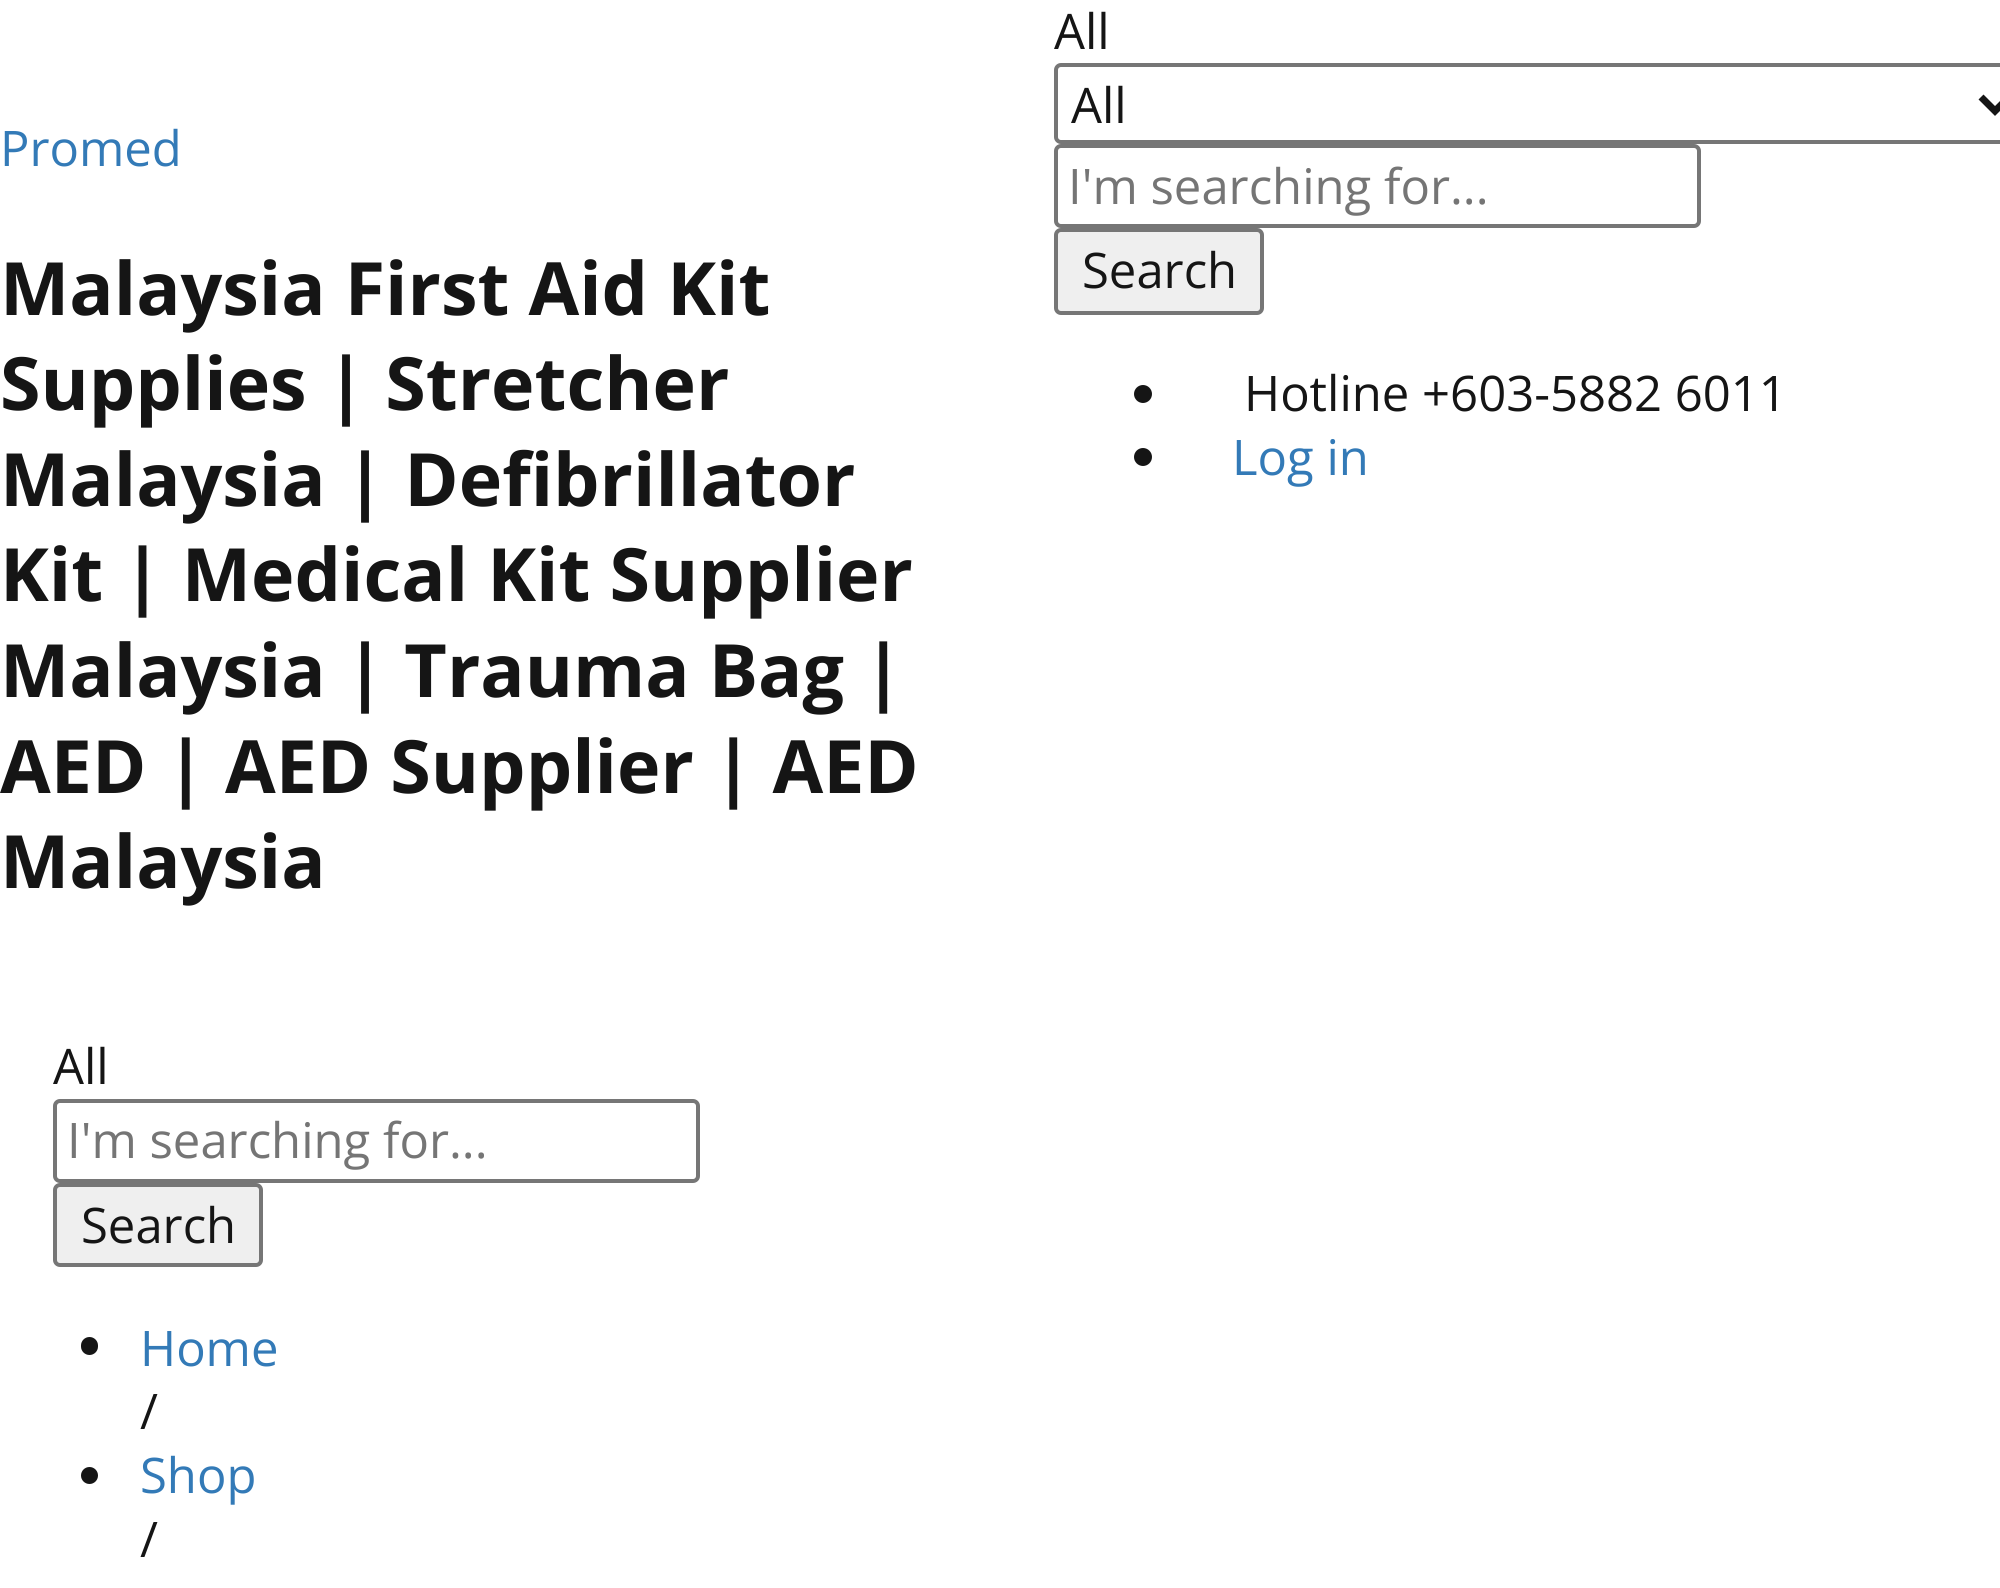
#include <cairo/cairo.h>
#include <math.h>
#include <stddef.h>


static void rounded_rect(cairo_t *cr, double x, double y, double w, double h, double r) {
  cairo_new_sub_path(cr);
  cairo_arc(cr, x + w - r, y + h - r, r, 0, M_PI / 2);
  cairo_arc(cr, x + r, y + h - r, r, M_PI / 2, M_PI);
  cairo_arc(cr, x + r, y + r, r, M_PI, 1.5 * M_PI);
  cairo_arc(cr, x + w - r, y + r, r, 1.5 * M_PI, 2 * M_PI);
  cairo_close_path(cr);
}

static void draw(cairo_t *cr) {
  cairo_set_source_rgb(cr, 1, 1, 1);
  cairo_paint(cr);
  rounded_rect(cr, 1056, 65, 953, 77, 5);
  cairo_set_source_rgb(cr, 118 / 255.0, 118 / 255.0, 118 / 255.0);
  cairo_set_line_width(cr, 4);
  cairo_stroke(cr);
  cairo_new_path(cr);
  cairo_move_to(cr, 1981, 97);
  cairo_line_to(cr, 1995, 111);
  cairo_line_to(cr, 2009, 97);
  cairo_set_source_rgb(cr, 21 / 255.0, 21 / 255.0, 21 / 255.0);
  cairo_set_line_width(cr, 7);
  cairo_stroke(cr);
  rounded_rect(cr, 1056, 146, 643, 80, 5);
  cairo_set_source_rgb(cr, 118 / 255.0, 118 / 255.0, 118 / 255.0);
  cairo_set_line_width(cr, 4);
  cairo_stroke(cr);
  cairo_set_source_rgb(cr, 239 / 255.0, 239 / 255.0, 239 / 255.0);
  rounded_rect(cr, 1056, 230, 206, 83, 5);
  cairo_fill_preserve(cr);
  cairo_set_source_rgb(cr, 118 / 255.0, 118 / 255.0, 118 / 255.0);
  cairo_stroke(cr);
  cairo_set_source_rgb(cr, 21 / 255.0, 21 / 255.0, 21 / 255.0);
  cairo_arc(cr, 1143, 394, 9, 0, 2 * M_PI);
  cairo_fill(cr);
  cairo_arc(cr, 1143, 457, 9, 0, 2 * M_PI);
  cairo_fill(cr);
  rounded_rect(cr, 55, 1101, 643, 80, 5);
  cairo_set_source_rgb(cr, 118 / 255.0, 118 / 255.0, 118 / 255.0);
  cairo_stroke(cr);
  cairo_set_source_rgb(cr, 239 / 255.0, 239 / 255.0, 239 / 255.0);
  rounded_rect(cr, 55, 1185, 206, 80, 5);
  cairo_fill_preserve(cr);
  cairo_set_source_rgb(cr, 118 / 255.0, 118 / 255.0, 118 / 255.0);
  cairo_stroke(cr);
  cairo_set_source_rgb(cr, 21 / 255.0, 21 / 255.0, 21 / 255.0);
  rounded_rect(cr, 81, 1337, 17, 18, 8.5);
  cairo_fill(cr);
  cairo_arc(cr, 89.5, 1475.5, 8.5, 0, 2 * M_PI);
  cairo_fill(cr);
  cairo_select_font_face(cr, "Open Sans", CAIRO_FONT_SLANT_NORMAL, CAIRO_FONT_WEIGHT_NORMAL);
  cairo_set_font_size(cr, 49);
  cairo_set_source_rgb(cr, 51 / 255.0, 122 / 255.0, 183 / 255.0);
  cairo_move_to(cr, 0, 166);
  cairo_show_text(cr, "Promed");
  cairo_select_font_face(cr, "Open Sans", CAIRO_FONT_SLANT_NORMAL, CAIRO_FONT_WEIGHT_BOLD);
  cairo_set_font_size(cr, 73.5);
  cairo_set_source_rgb(cr, 21 / 255.0, 21 / 255.0, 21 / 255.0);
  cairo_move_to(cr, 0, 315);
  cairo_show_text(cr, "Malaysia First Aid Kit");
  cairo_move_to(cr, 0, 410);
  cairo_show_text(cr, "Supplies | Stretcher");
  cairo_move_to(cr, 0, 506);
  cairo_show_text(cr, "Malaysia | Defibrillator");
  cairo_move_to(cr, 0, 601);
  cairo_show_text(cr, "Kit | Medical Kit Supplier");
  cairo_move_to(cr, 0, 697);
  cairo_show_text(cr, "Malaysia | Trauma Bag |");
  cairo_move_to(cr, 0, 793);
  cairo_show_text(cr, "AED | AED Supplier | AED");
  cairo_move_to(cr, 0, 888);
  cairo_show_text(cr, "Malaysia");
  cairo_select_font_face(cr, "Open Sans", CAIRO_FONT_SLANT_NORMAL, CAIRO_FONT_WEIGHT_NORMAL);
  cairo_set_font_size(cr, 49);
  cairo_move_to(cr, 1054, 49);
  cairo_show_text(cr, "All");
  cairo_move_to(cr, 1071, 123);
  cairo_show_text(cr, "All");
  cairo_set_source_rgb(cr, 117 / 255.0, 117 / 255.0, 117 / 255.0);
  cairo_move_to(cr, 1068, 204);
  cairo_show_text(cr, "I'm searching for...");
  cairo_set_source_rgb(cr, 21 / 255.0, 21 / 255.0, 21 / 255.0);
  cairo_move_to(cr, 1082, 288);
  cairo_show_text(cr, "Search");
  cairo_move_to(cr, 1244, 411);
  cairo_show_text(cr, "Hotline +603-5882 6011");
  cairo_set_source_rgb(cr, 51 / 255.0, 122 / 255.0, 183 / 255.0);
  cairo_move_to(cr, 1232, 475);
  cairo_show_text(cr, "Log in");
  cairo_set_source_rgb(cr, 21 / 255.0, 21 / 255.0, 21 / 255.0);
  cairo_move_to(cr, 53, 1084);
  cairo_show_text(cr, "All");
  cairo_set_source_rgb(cr, 117 / 255.0, 117 / 255.0, 117 / 255.0);
  cairo_move_to(cr, 67, 1158);
  cairo_show_text(cr, "I'm searching for...");
  cairo_set_source_rgb(cr, 21 / 255.0, 21 / 255.0, 21 / 255.0);
  cairo_move_to(cr, 81, 1243);
  cairo_show_text(cr, "Search");
  cairo_set_source_rgb(cr, 51 / 255.0, 122 / 255.0, 183 / 255.0);
  cairo_move_to(cr, 140, 1366);
  cairo_show_text(cr, "Home");
  cairo_set_source_rgb(cr, 21 / 255.0, 21 / 255.0, 21 / 255.0);
  cairo_move_to(cr, 140, 1429);
  cairo_show_text(cr, "/");
  cairo_set_source_rgb(cr, 51 / 255.0, 122 / 255.0, 183 / 255.0);
  cairo_move_to(cr, 140, 1493);
  cairo_show_text(cr, "Shop");
  cairo_set_source_rgb(cr, 21 / 255.0, 21 / 255.0, 21 / 255.0);
  cairo_move_to(cr, 140, 1557);
  cairo_show_text(cr, "/");
}

int main(void) {
  cairo_surface_t *surface = cairo_image_surface_create(CAIRO_FORMAT_RGB24, 2000, 1588);
  cairo_t *cr = cairo_create(surface);
  cairo_font_options_t *options = cairo_font_options_create();
  cairo_font_options_set_hint_metrics(options, CAIRO_HINT_METRICS_OFF);
  cairo_font_options_set_hint_style(options, CAIRO_HINT_STYLE_NONE);
  cairo_set_font_options(cr, options);
  cairo_set_miter_limit(cr, 4);
  draw(cr);
  cairo_surface_write_to_png(surface, "out.png");
  cairo_font_options_destroy(options);
  cairo_destroy(cr);
  cairo_surface_destroy(surface);
  return 0;
}
